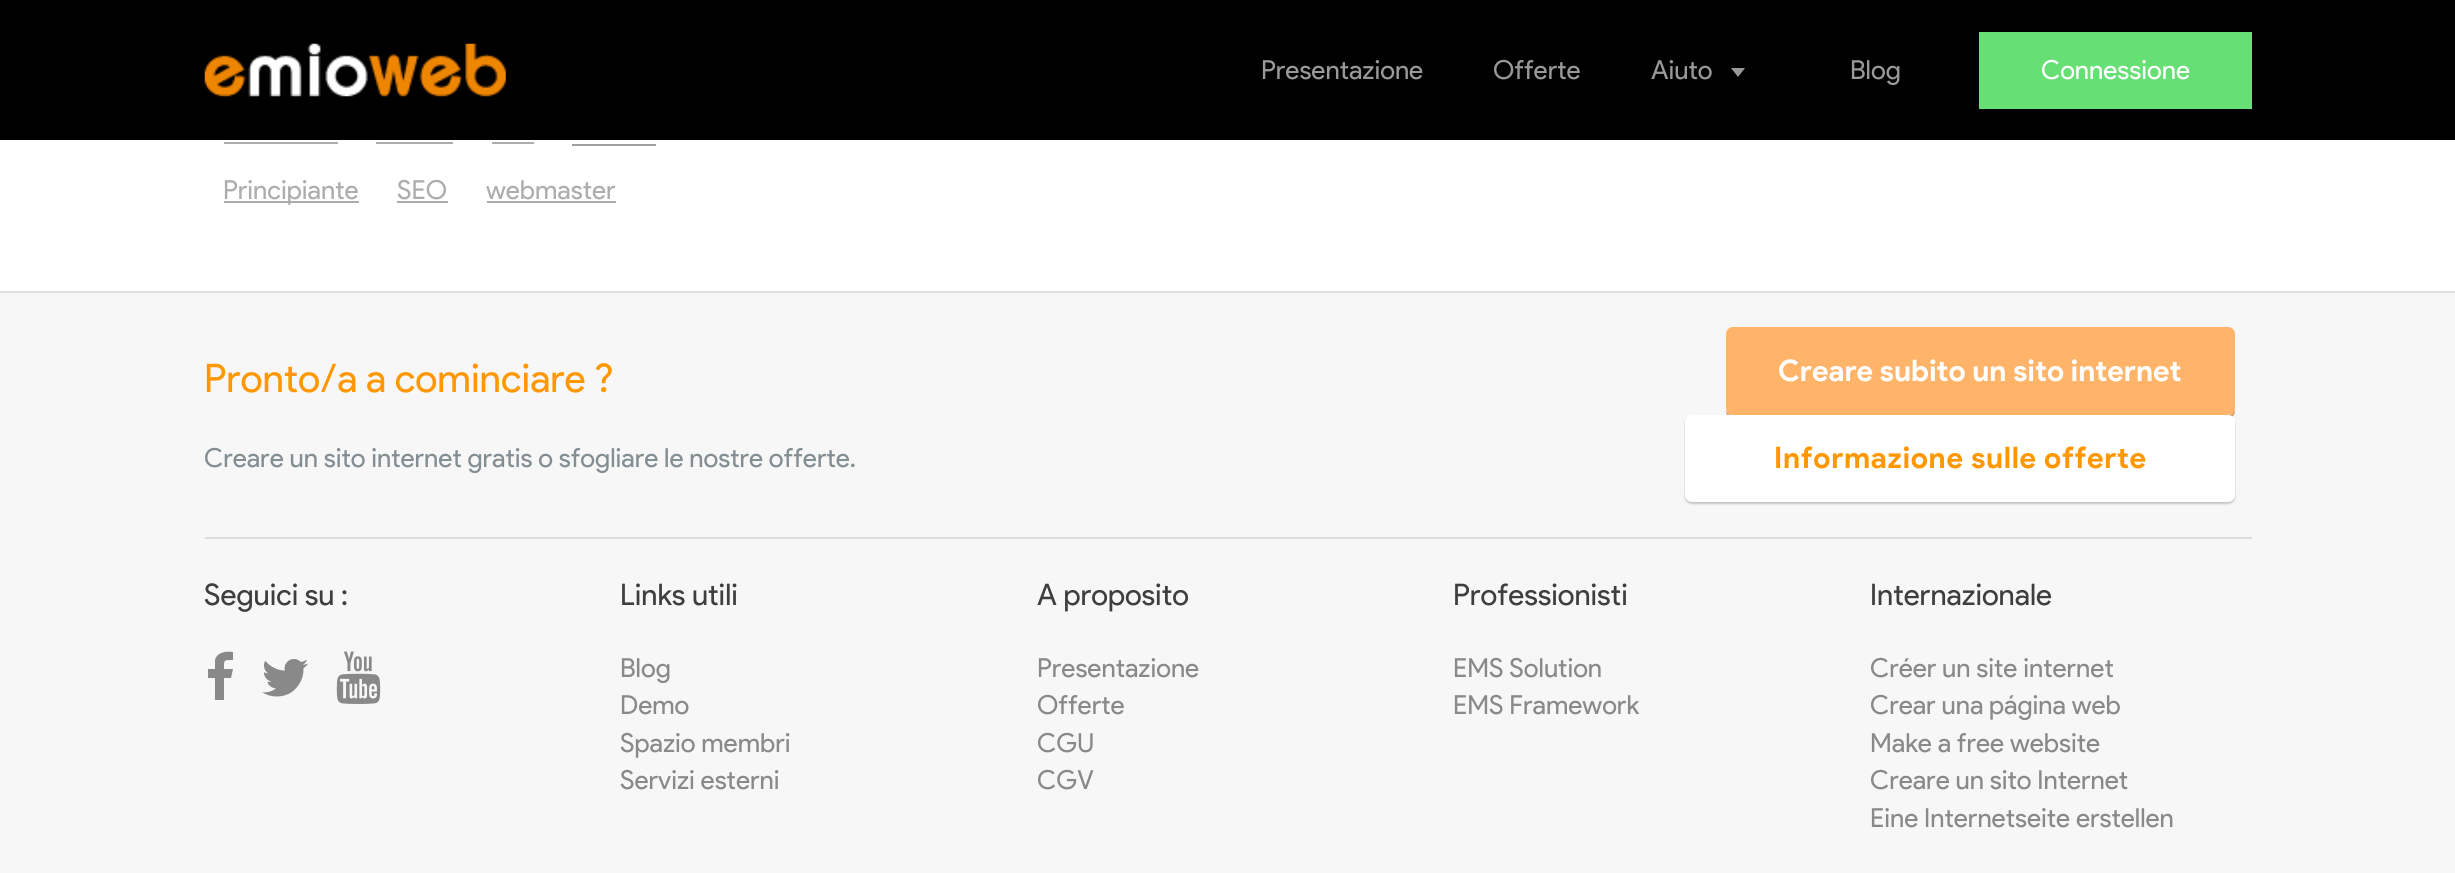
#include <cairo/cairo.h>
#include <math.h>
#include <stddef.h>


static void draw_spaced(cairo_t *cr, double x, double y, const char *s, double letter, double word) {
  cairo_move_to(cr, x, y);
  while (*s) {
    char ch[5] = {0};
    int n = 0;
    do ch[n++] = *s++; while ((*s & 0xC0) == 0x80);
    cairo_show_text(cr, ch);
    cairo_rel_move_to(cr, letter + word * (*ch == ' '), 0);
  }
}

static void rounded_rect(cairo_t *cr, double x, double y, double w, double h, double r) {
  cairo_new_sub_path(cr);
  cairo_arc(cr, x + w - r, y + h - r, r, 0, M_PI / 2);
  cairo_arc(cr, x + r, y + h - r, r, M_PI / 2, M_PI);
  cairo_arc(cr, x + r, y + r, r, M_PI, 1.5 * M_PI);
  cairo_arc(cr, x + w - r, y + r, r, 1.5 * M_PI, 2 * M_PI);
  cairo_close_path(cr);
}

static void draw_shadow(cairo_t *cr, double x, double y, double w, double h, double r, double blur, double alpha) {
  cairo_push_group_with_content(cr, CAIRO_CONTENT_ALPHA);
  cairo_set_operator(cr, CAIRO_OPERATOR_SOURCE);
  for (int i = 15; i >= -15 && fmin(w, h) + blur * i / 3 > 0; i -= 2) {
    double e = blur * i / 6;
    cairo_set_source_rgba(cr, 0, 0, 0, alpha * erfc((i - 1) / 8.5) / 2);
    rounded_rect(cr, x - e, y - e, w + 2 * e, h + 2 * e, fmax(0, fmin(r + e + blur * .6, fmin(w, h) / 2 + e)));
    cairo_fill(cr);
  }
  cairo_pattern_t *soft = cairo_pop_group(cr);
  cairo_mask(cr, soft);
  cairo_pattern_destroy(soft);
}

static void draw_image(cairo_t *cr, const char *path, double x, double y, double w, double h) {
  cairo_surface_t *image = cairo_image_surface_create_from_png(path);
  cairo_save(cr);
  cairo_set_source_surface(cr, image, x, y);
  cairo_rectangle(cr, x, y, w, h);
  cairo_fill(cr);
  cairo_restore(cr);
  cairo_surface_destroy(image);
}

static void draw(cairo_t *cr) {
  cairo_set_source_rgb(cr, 1, 1, 1);
  cairo_paint(cr);
  cairo_set_source_rgb(cr, 0, 0, 0);
  cairo_rectangle(cr, 0, 0, 2455, 140);
  cairo_fill(cr);
  draw_image(cr, "images/1.png", 204, 43, 302, 54);
  cairo_set_source_rgb(cr, 153 / 255.0, 153 / 255.0, 153 / 255.0);
  cairo_new_path(cr);
  cairo_move_to(cr, 1731, 68);
  cairo_line_to(cr, 1745, 68);
  cairo_line_to(cr, 1738, 77);
  cairo_close_path(cr);
  cairo_fill(cr);
  cairo_set_source_rgb(cr, 102 / 255.0, 223 / 255.0, 116 / 255.0);
  cairo_rectangle(cr, 1979, 32, 273, 77);
  cairo_fill(cr);
  cairo_set_source_rgb(cr, 173 / 255.0, 173 / 255.0, 173 / 255.0);
  cairo_rectangle(cr, 224, 142, 114, 2);
  cairo_fill(cr);
  cairo_rectangle(cr, 376, 142, 77, 2);
  cairo_fill(cr);
  cairo_rectangle(cr, 492, 142, 42, 2);
  cairo_fill(cr);
  cairo_set_source_rgb(cr, 159 / 255.0, 159 / 255.0, 159 / 255.0);
  cairo_rectangle(cr, 572, 144, 84, 2);
  cairo_fill(cr);
  cairo_set_source_rgb(cr, 173 / 255.0, 173 / 255.0, 173 / 255.0);
  cairo_rectangle(cr, 224, 201, 135, 2);
  cairo_fill(cr);
  cairo_rectangle(cr, 397, 201, 51, 2);
  cairo_fill(cr);
  cairo_rectangle(cr, 487, 201, 129, 2);
  cairo_fill(cr);
  cairo_set_source_rgb(cr, 247 / 255.0, 247 / 255.0, 247 / 255.0);
  cairo_rectangle(cr, 0, 293, 2455, 580);
  cairo_fill(cr);
  cairo_set_source_rgb(cr, 223 / 255.0, 223 / 255.0, 223 / 255.0);
  cairo_rectangle(cr, 0, 291, 2455, 2);
  cairo_fill(cr);
  cairo_set_source_rgb(cr, 217 / 255.0, 156 / 255.0, 95 / 255.0);
  cairo_new_path(cr);
  cairo_move_to(cr, 1726, 410);
  cairo_line_to(cr, 1726, 411);
  cairo_curve_to(cr, 1726, 415, 1729, 418, 1733, 418);
  cairo_line_to(cr, 2228, 418);
  cairo_curve_to(cr, 2232, 418, 2235, 415, 2235, 411);
  cairo_line_to(cr, 2235, 336);
  cairo_line_to(cr, 2235, 408);
  cairo_curve_to(cr, 2235, 412, 2232, 415, 2228, 415);
  cairo_line_to(cr, 1732, 415);
  cairo_curve_to(cr, 1730, 415, 1727, 413, 1726, 410);
  cairo_close_path(cr);
  cairo_fill(cr);
  cairo_set_source_rgb(cr, 1, 180 / 255.0, 105 / 255.0);
  rounded_rect(cr, 1726, 327, 509, 88, 7);
  cairo_fill(cr);
  cairo_set_source_rgb(cr, 197 / 255.0, 197 / 255.0, 197 / 255.0);
  draw_shadow(cr, 1685, 417, 550, 87, 7, 1, 1);
  cairo_set_source_rgb(cr, 1, 1, 1);
  rounded_rect(cr, 1685, 415, 550, 87, 7);
  cairo_fill(cr);
  cairo_set_source_rgb(cr, 221 / 255.0, 221 / 255.0, 221 / 255.0);
  cairo_rectangle(cr, 205, 537, 2047, 2);
  cairo_fill(cr);
  cairo_set_source_rgb(cr, 137 / 255.0, 137 / 255.0, 137 / 255.0);
  cairo_new_path(cr);
  cairo_move_to(cr, 233, 652);
  cairo_line_to(cr, 233, 660);
  cairo_curve_to(cr, 223, 660, 224, 660, 224, 669);
  cairo_line_to(cr, 233, 669);
  cairo_line_to(cr, 231, 678);
  cairo_line_to(cr, 224, 678);
  cairo_line_to(cr, 224, 700);
  cairo_line_to(cr, 215, 700);
  cairo_line_to(cr, 215, 678);
  cairo_line_to(cr, 208, 678);
  cairo_line_to(cr, 208, 669);
  cairo_line_to(cr, 215, 669);
  cairo_line_to(cr, 215, 660);
  cairo_curve_to(cr, 217, 652, 226, 651, 233, 652);
  cairo_close_path(cr);
  cairo_fill(cr);
  draw_image(cr, "images/2.png", 262, 659, 46, 38);
  draw_image(cr, "images/3.png", 336, 651, 45, 53);
  cairo_select_font_face(cr, "Product Sans", CAIRO_FONT_SLANT_NORMAL, CAIRO_FONT_WEIGHT_NORMAL);
  cairo_set_font_size(cr, 26.25);
  cairo_set_source_rgb(cr, 153 / 255.0, 153 / 255.0, 153 / 255.0);
  cairo_move_to(cr, 1261, 79);
  cairo_show_text(cr, "Presentazione");
  cairo_move_to(cr, 1493, 79);
  cairo_show_text(cr, "Offerte");
  cairo_move_to(cr, 1651, 79);
  cairo_show_text(cr, "Aiuto");
  cairo_move_to(cr, 1850, 79);
  cairo_show_text(cr, "Blog");
  cairo_set_source_rgb(cr, 1, 1, 1);
  cairo_move_to(cr, 2041, 79);
  cairo_show_text(cr, "Connessione");
  cairo_set_source_rgb(cr, 173 / 255.0, 173 / 255.0, 173 / 255.0);
  cairo_move_to(cr, 223, 199);
  cairo_show_text(cr, "Principiante");
  cairo_move_to(cr, 397, 199);
  cairo_show_text(cr, "SEO");
  cairo_move_to(cr, 486, 199);
  cairo_show_text(cr, "webmaster");
  cairo_set_font_size(cr, 39.4);
  cairo_set_source_rgb(cr, 1, 152 / 255.0, 0);
  cairo_move_to(cr, 204, 392);
  cairo_show_text(cr, "Pronto/a a cominciare ?");
  cairo_set_font_size(cr, 26.25);
  cairo_set_source_rgb(cr, 131 / 255.0, 142 / 255.0, 147 / 255.0);
  cairo_move_to(cr, 204, 467);
  cairo_show_text(cr, "Creare un sito internet gratis o sfogliare le nostre offerte.");
  cairo_select_font_face(cr, "Product Sans", CAIRO_FONT_SLANT_NORMAL, CAIRO_FONT_WEIGHT_BOLD);
  cairo_set_font_size(cr, 29.75);
  cairo_set_source_rgb(cr, 1, 1, 1);
  cairo_move_to(cr, 1778, 381);
  cairo_show_text(cr, "Creare subito un sito internet");
  cairo_set_source_rgb(cr, 1, 152 / 255.0, 0);
  draw_spaced(cr, 1774, 468, "Informazione sulle offerte", 0.7, 0);
  cairo_select_font_face(cr, "Product Sans", CAIRO_FONT_SLANT_NORMAL, CAIRO_FONT_WEIGHT_NORMAL);
  cairo_set_source_rgb(cr, 62 / 255.0, 62 / 255.0, 62 / 255.0);
  cairo_move_to(cr, 204, 605);
  cairo_show_text(cr, "Seguici su :");
  cairo_move_to(cr, 620, 605);
  cairo_show_text(cr, "Links utili");
  cairo_set_font_size(cr, 26.25);
  cairo_set_source_rgb(cr, 137 / 255.0, 137 / 255.0, 137 / 255.0);
  cairo_move_to(cr, 620, 677);
  cairo_show_text(cr, "Blog");
  cairo_move_to(cr, 620, 714);
  cairo_show_text(cr, "Demo");
  cairo_move_to(cr, 620, 752);
  cairo_show_text(cr, "Spazio membri");
  cairo_move_to(cr, 620, 789);
  cairo_show_text(cr, "Servizi esterni");
  cairo_set_font_size(cr, 29.75);
  cairo_set_source_rgb(cr, 62 / 255.0, 62 / 255.0, 62 / 255.0);
  cairo_move_to(cr, 1037, 605);
  cairo_show_text(cr, "A proposito");
  cairo_set_font_size(cr, 26.25);
  cairo_set_source_rgb(cr, 137 / 255.0, 137 / 255.0, 137 / 255.0);
  cairo_move_to(cr, 1037, 677);
  cairo_show_text(cr, "Presentazione");
  cairo_move_to(cr, 1037, 714);
  cairo_show_text(cr, "Offerte");
  cairo_move_to(cr, 1037, 752);
  cairo_show_text(cr, "CGU");
  cairo_move_to(cr, 1037, 789);
  cairo_show_text(cr, "CGV");
  cairo_set_font_size(cr, 29.75);
  cairo_set_source_rgb(cr, 62 / 255.0, 62 / 255.0, 62 / 255.0);
  cairo_move_to(cr, 1453, 605);
  cairo_show_text(cr, "Professionisti");
  cairo_set_font_size(cr, 26.25);
  cairo_set_source_rgb(cr, 137 / 255.0, 137 / 255.0, 137 / 255.0);
  cairo_move_to(cr, 1453, 677);
  cairo_show_text(cr, "EMS Solution");
  cairo_move_to(cr, 1453, 714);
  cairo_show_text(cr, "EMS Framework");
  cairo_set_font_size(cr, 29.75);
  cairo_set_source_rgb(cr, 62 / 255.0, 62 / 255.0, 62 / 255.0);
  cairo_move_to(cr, 1870, 605);
  cairo_show_text(cr, "Internazionale");
  cairo_set_font_size(cr, 26.25);
  cairo_set_source_rgb(cr, 137 / 255.0, 137 / 255.0, 137 / 255.0);
  cairo_move_to(cr, 1870, 677);
  cairo_show_text(cr, "Créer un site internet");
  cairo_move_to(cr, 1870, 714);
  cairo_show_text(cr, "Crear una página web");
  cairo_move_to(cr, 1870, 752);
  cairo_show_text(cr, "Make a free website");
  cairo_move_to(cr, 1870, 789);
  cairo_show_text(cr, "Creare un sito Internet");
  cairo_move_to(cr, 1870, 827);
  cairo_show_text(cr, "Eine Internetseite erstellen");
}

int main(void) {
  cairo_surface_t *surface = cairo_image_surface_create(CAIRO_FORMAT_RGB24, 2455, 873);
  cairo_t *cr = cairo_create(surface);
  cairo_font_options_t *options = cairo_font_options_create();
  cairo_font_options_set_hint_metrics(options, CAIRO_HINT_METRICS_OFF);
  cairo_font_options_set_hint_style(options, CAIRO_HINT_STYLE_NONE);
  cairo_set_font_options(cr, options);
  cairo_set_miter_limit(cr, 4);
  draw(cr);
  cairo_surface_write_to_png(surface, "out.png");
  cairo_font_options_destroy(options);
  cairo_destroy(cr);
  cairo_surface_destroy(surface);
  return 0;
}
